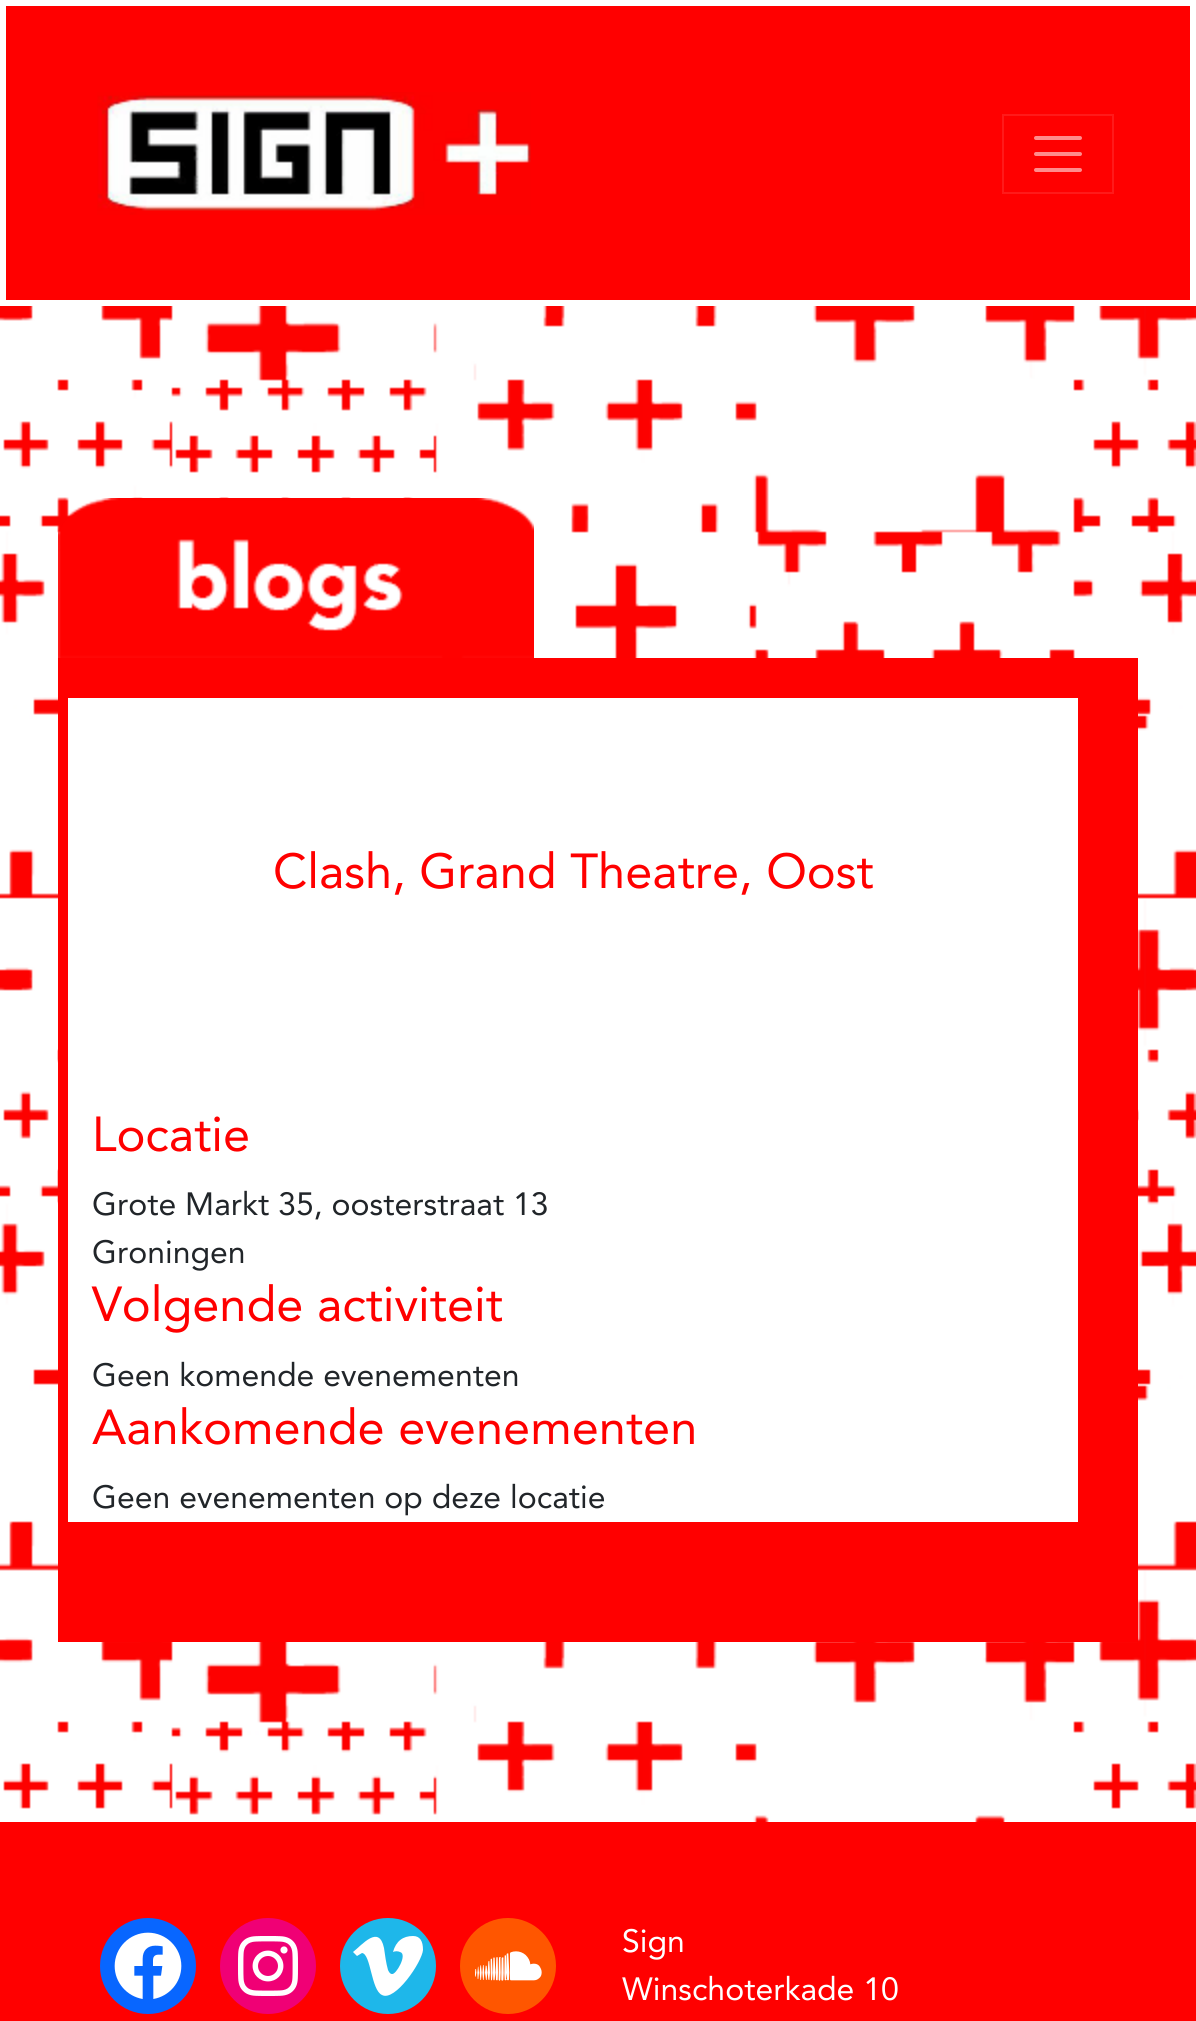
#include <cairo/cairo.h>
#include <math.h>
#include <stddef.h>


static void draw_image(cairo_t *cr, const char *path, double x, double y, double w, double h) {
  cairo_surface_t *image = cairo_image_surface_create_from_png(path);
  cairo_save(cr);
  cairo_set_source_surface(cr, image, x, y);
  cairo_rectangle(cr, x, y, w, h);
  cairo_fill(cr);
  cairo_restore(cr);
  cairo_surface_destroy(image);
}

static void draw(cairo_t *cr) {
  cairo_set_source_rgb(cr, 1, 0, 0);
  cairo_paint(cr);
  cairo_rectangle(cr, 3, 3, 1190, 300);
  cairo_set_source_rgb(cr, 1, 1, 1);
  cairo_set_line_width(cr, 6);
  cairo_stroke(cr);
  draw_image(cr, "images/1.png", 97, 92, 434, 123);
  cairo_rectangle(cr, 1003, 115, 110, 78);
  cairo_set_source_rgb(cr, 1, 26 / 255.0, 26 / 255.0);
  cairo_set_line_width(cr, 2);
  cairo_stroke(cr);
  cairo_new_path(cr);
  cairo_move_to(cr, 1036, 138);
  cairo_line_to(cr, 1080, 138);
  cairo_move_to(cr, 1036, 154);
  cairo_line_to(cr, 1080, 154);
  cairo_move_to(cr, 1036, 170);
  cairo_line_to(cr, 1080, 170);
  cairo_set_source_rgb(cr, 1, 140 / 255.0, 140 / 255.0);
  cairo_set_line_width(cr, 4);
  cairo_set_line_cap(cr, CAIRO_LINE_CAP_ROUND);
  cairo_stroke(cr);
  draw_image(cr, "images/2.png", 0, 306, 1196, 1516);
  draw_image(cr, "images/3.png", 58, 498, 476, 160);
  cairo_set_source_rgb(cr, 1, 1, 1);
  cairo_rectangle(cr, 68, 698, 1010, 824);
  cairo_fill(cr);
  cairo_set_source_rgb(cr, 1, 0, 0);
  cairo_rectangle(cr, 68, 658, 1010, 40);
  cairo_fill(cr);
  cairo_rectangle(cr, 1078, 658, 60, 864);
  cairo_fill(cr);
  cairo_rectangle(cr, 68, 1522, 1070, 120);
  cairo_fill(cr);
  cairo_rectangle(cr, 58, 658, 10, 984);
  cairo_fill(cr);
  cairo_set_source_rgb(cr, 8 / 255.0, 102 / 255.0, 1);
  cairo_arc(cr, 148, 1966, 48, 0, 2 * M_PI);
  cairo_fill(cr);
  draw_image(cr, "images/4.png", 114, 1932, 68, 67);
  cairo_set_source_rgb(cr, 240 / 255.0, 0, 117 / 255.0);
  cairo_arc(cr, 268, 1966, 48, 0, 2 * M_PI);
  cairo_fill(cr);
  draw_image(cr, "images/5.png", 238, 1936, 60, 60);
  cairo_set_source_rgb(cr, 30 / 255.0, 183 / 255.0, 234 / 255.0);
  cairo_arc(cr, 388, 1966, 48, 0, 2 * M_PI);
  cairo_fill(cr);
  cairo_set_source_rgb(cr, 1, 1, 1);
  cairo_new_path(cr);
  cairo_move_to(cr, 423, 1950);
  cairo_curve_to(cr, 422, 1962, 395, 2002, 382, 1995);
  cairo_curve_to(cr, 371, 1990, 371, 1954, 362, 1953);
  cairo_line_to(cr, 357, 1956);
  cairo_line_to(cr, 353, 1952);
  cairo_curve_to(cr, 362, 1945, 379, 1924, 384, 1948);
  cairo_curve_to(cr, 385, 1955, 386, 1963, 388, 1970);
  cairo_curve_to(cr, 389, 1972, 390, 1974, 392, 1974);
  cairo_curve_to(cr, 396, 1975, 408, 1954, 400, 1952);
  cairo_curve_to(cr, 398, 1951, 395, 1951, 393, 1952);
  cairo_curve_to(cr, 396, 1941, 403, 1936, 413, 1936);
  cairo_curve_to(cr, 420, 1936, 423, 1941, 423, 1950);
  cairo_close_path(cr);
  cairo_fill(cr);
  cairo_set_source_rgb(cr, 1, 86 / 255.0, 0);
  cairo_arc(cr, 508, 1966, 48, 0, 2 * M_PI);
  cairo_fill(cr);
  draw_image(cr, "images/6.png", 475, 1951, 67, 30);
  cairo_select_font_face(cr, "Avenir", CAIRO_FONT_SLANT_NORMAL, CAIRO_FONT_WEIGHT_NORMAL);
  cairo_set_font_size(cr, 48.75);
  cairo_set_source_rgb(cr, 1, 0, 0);
  cairo_move_to(cr, 273, 888);
  cairo_show_text(cr, "Clash, Grand Theatre, Oost");
  cairo_move_to(cr, 92, 1151);
  cairo_show_text(cr, "Locatie");
  cairo_set_font_size(cr, 32);
  cairo_set_source_rgb(cr, 33 / 255.0, 37 / 255.0, 41 / 255.0);
  cairo_move_to(cr, 92, 1215);
  cairo_show_text(cr, "Grote Markt 35, oosterstraat 13");
  cairo_move_to(cr, 92, 1263);
  cairo_show_text(cr, "Groningen");
  cairo_set_font_size(cr, 48.75);
  cairo_set_source_rgb(cr, 1, 0, 0);
  cairo_move_to(cr, 92, 1321);
  cairo_show_text(cr, "Volgende activiteit");
  cairo_set_font_size(cr, 32);
  cairo_set_source_rgb(cr, 33 / 255.0, 37 / 255.0, 41 / 255.0);
  cairo_move_to(cr, 92, 1386);
  cairo_show_text(cr, "Geen komende evenementen");
  cairo_set_font_size(cr, 48.75);
  cairo_set_source_rgb(cr, 1, 0, 0);
  cairo_move_to(cr, 92, 1444);
  cairo_show_text(cr, "Aankomende evenementen");
  cairo_set_font_size(cr, 32);
  cairo_set_source_rgb(cr, 33 / 255.0, 37 / 255.0, 41 / 255.0);
  cairo_move_to(cr, 92, 1508);
  cairo_show_text(cr, "Geen evenementen op deze locatie");
  cairo_set_source_rgb(cr, 1, 1, 1);
  cairo_move_to(cr, 622, 1952);
  cairo_show_text(cr, "Sign");
  cairo_move_to(cr, 622, 2000);
  cairo_show_text(cr, "Winschoterkade 10");
}

int main(void) {
  cairo_surface_t *surface = cairo_image_surface_create(CAIRO_FORMAT_RGB24, 1196, 2021);
  cairo_t *cr = cairo_create(surface);
  cairo_font_options_t *options = cairo_font_options_create();
  cairo_font_options_set_hint_metrics(options, CAIRO_HINT_METRICS_OFF);
  cairo_font_options_set_hint_style(options, CAIRO_HINT_STYLE_NONE);
  cairo_set_font_options(cr, options);
  cairo_set_miter_limit(cr, 4);
  draw(cr);
  cairo_surface_write_to_png(surface, "out.png");
  cairo_font_options_destroy(options);
  cairo_destroy(cr);
  cairo_surface_destroy(surface);
  return 0;
}
